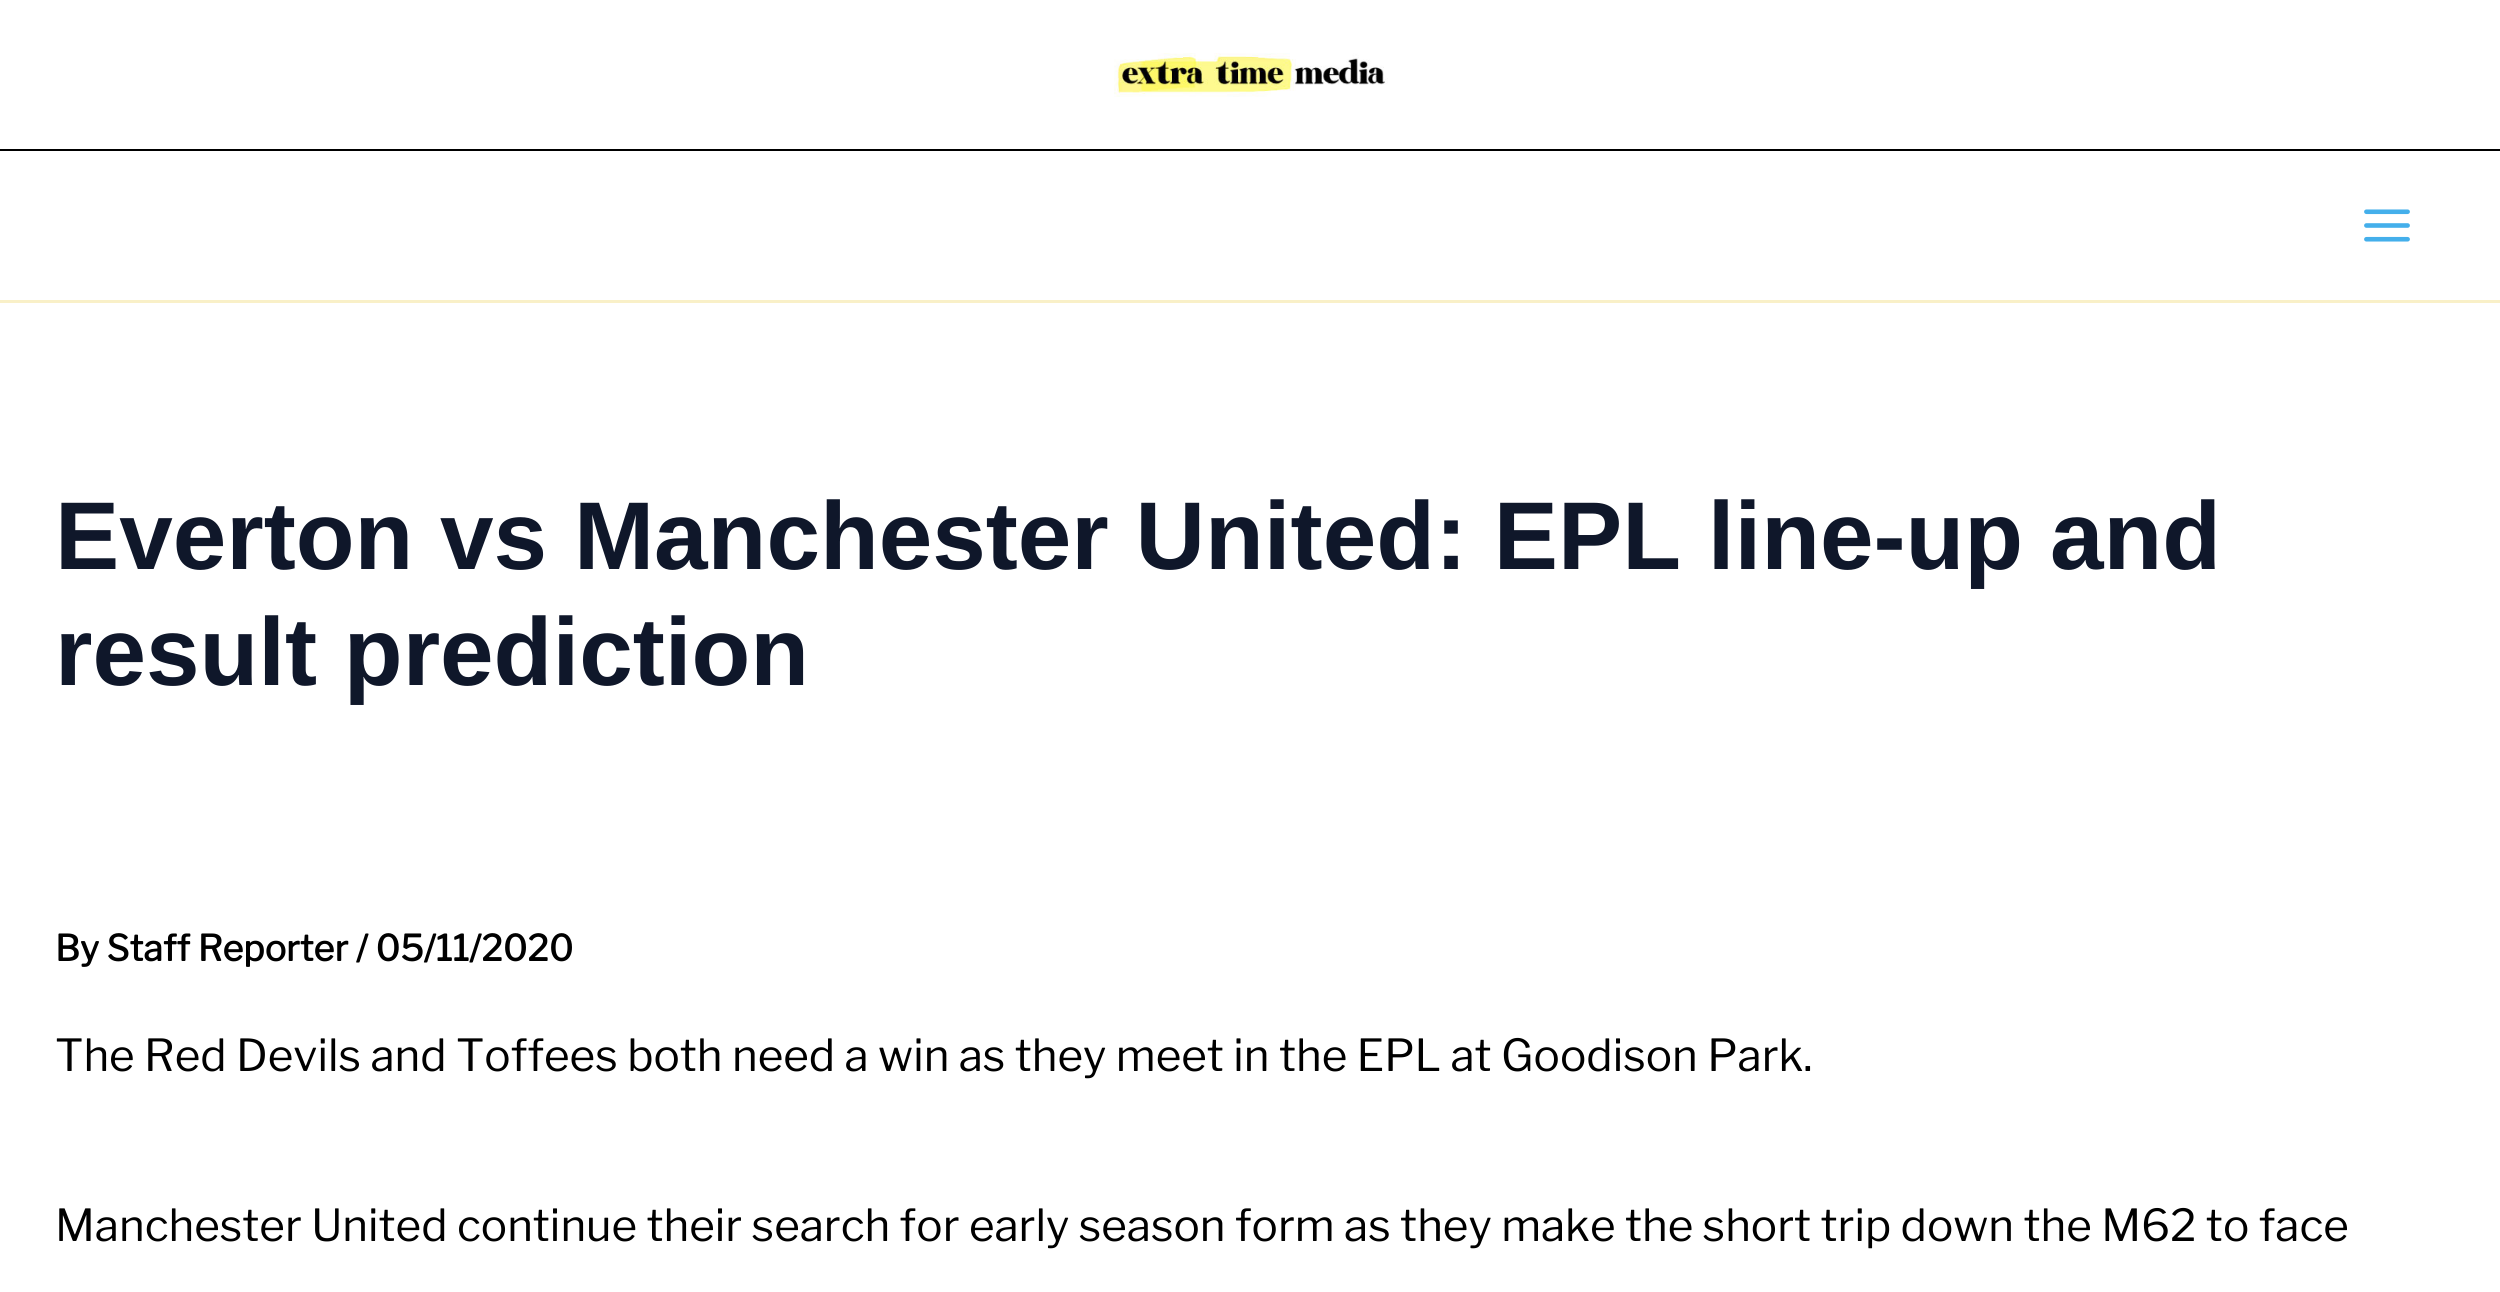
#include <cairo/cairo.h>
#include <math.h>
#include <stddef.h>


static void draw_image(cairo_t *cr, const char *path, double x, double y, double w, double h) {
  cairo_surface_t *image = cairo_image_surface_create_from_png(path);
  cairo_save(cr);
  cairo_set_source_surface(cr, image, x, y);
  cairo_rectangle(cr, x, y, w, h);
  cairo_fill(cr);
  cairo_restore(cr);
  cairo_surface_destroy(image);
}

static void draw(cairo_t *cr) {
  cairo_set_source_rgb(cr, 1, 1, 1);
  cairo_paint(cr);
  cairo_set_source_rgb(cr, 0, 0, 0);
  cairo_rectangle(cr, 0, 149, 2500, 2);
  cairo_fill(cr);
  draw_image(cr, "images/1.png", 1114, 53, 274, 44);
  cairo_set_source_rgb(cr, 249 / 255.0, 240 / 255.0, 200 / 255.0);
  cairo_rectangle(cr, 0, 300, 2500, 3);
  cairo_fill(cr);
  draw_image(cr, "images/2.png", 2364, 209, 46, 33);
  cairo_select_font_face(cr, "Liberation Sans", CAIRO_FONT_SLANT_NORMAL, CAIRO_FONT_WEIGHT_BOLD);
  cairo_set_font_size(cr, 96.25);
  cairo_set_source_rgb(cr, 15 / 255.0, 23 / 255.0, 42 / 255.0);
  cairo_move_to(cr, 55, 569);
  cairo_show_text(cr, "Everton vs Manchester United: EPL line-up and");
  cairo_move_to(cr, 55, 685);
  cairo_show_text(cr, "result prediction");
  cairo_select_font_face(cr, "Libre Franklin", CAIRO_FONT_SLANT_NORMAL, CAIRO_FONT_WEIGHT_BOLD);
  cairo_set_font_size(cr, 35.75);
  cairo_set_source_rgb(cr, 0, 0, 0);
  cairo_move_to(cr, 55, 961);
  cairo_show_text(cr, "By Staff Reporter / 05/11/2020");
  cairo_select_font_face(cr, "Libre Franklin Thin", CAIRO_FONT_SLANT_NORMAL, CAIRO_FONT_WEIGHT_NORMAL);
  cairo_set_font_size(cr, 44);
  cairo_move_to(cr, 55, 1071);
  cairo_show_text(cr, "The Red Devils and Toffees both need a win as they meet in the EPL at Goodison Park.");
  cairo_move_to(cr, 55, 1241);
  cairo_show_text(cr, "Manchester United continue their search for early season form as they make the short trip down the M62 to face");
}

int main(void) {
  cairo_surface_t *surface = cairo_image_surface_create(CAIRO_FORMAT_RGB24, 2500, 1292);
  cairo_t *cr = cairo_create(surface);
  cairo_font_options_t *options = cairo_font_options_create();
  cairo_font_options_set_hint_metrics(options, CAIRO_HINT_METRICS_OFF);
  cairo_font_options_set_hint_style(options, CAIRO_HINT_STYLE_NONE);
  cairo_set_font_options(cr, options);
  cairo_set_miter_limit(cr, 4);
  draw(cr);
  cairo_surface_write_to_png(surface, "out.png");
  cairo_font_options_destroy(options);
  cairo_destroy(cr);
  cairo_surface_destroy(surface);
  return 0;
}
